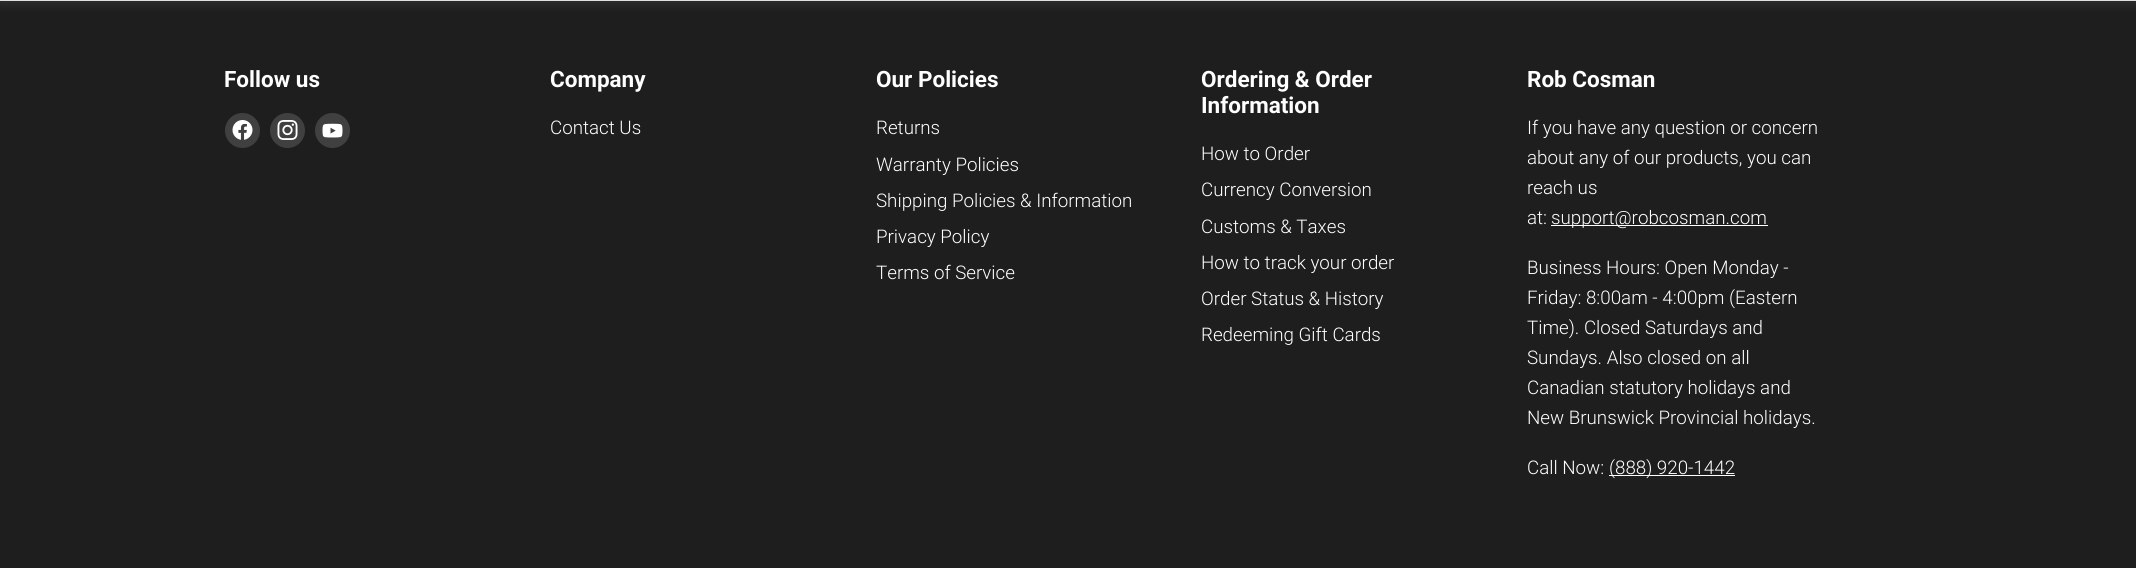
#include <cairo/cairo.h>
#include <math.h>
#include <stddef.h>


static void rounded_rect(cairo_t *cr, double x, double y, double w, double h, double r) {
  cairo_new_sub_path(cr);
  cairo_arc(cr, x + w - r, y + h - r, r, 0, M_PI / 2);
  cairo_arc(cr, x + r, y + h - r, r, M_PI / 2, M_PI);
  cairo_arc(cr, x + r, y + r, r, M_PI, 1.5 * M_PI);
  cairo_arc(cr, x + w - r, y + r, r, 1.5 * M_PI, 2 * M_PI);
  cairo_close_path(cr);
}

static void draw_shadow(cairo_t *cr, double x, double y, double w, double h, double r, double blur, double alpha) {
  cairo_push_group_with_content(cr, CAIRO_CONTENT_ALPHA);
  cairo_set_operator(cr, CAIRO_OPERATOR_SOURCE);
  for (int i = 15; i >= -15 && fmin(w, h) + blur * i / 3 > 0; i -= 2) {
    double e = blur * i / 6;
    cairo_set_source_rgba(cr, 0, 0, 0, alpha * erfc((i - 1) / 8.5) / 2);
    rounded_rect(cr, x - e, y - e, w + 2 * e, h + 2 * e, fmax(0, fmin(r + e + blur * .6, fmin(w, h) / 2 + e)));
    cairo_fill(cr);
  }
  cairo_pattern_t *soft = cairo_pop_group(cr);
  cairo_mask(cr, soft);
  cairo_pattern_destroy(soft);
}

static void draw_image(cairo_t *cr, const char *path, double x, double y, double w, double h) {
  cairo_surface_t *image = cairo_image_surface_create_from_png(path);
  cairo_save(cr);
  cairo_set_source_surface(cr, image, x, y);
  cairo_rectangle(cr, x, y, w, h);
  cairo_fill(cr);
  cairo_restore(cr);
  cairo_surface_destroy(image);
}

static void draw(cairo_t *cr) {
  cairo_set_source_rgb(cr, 30 / 255.0, 30 / 255.0, 30 / 255.0);
  cairo_paint(cr);
  cairo_set_source_rgb(cr, 128 / 255.0, 128 / 255.0, 128 / 255.0);
  draw_shadow(cr, -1, -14, 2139, 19, 0, 4.5, 0.16);
  cairo_rectangle(cr, -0.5, -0.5, 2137, 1);
  cairo_set_source_rgb(cr, 223 / 255.0, 223 / 255.0, 223 / 255.0);
  cairo_set_line_width(cr, 1);
  cairo_stroke(cr);
  cairo_set_source_rgb(cr, 64 / 255.0, 64 / 255.0, 64 / 255.0);
  cairo_arc(cr, 242.5, 130.5, 17.5, 0, 2 * M_PI);
  cairo_fill(cr);
  draw_image(cr, "images/1.png", 232, 120, 21, 20);
  cairo_arc(cr, 287.5, 130.5, 17.5, 0, 2 * M_PI);
  cairo_fill(cr);
  draw_image(cr, "images/2.png", 277, 120, 21, 20);
  cairo_arc(cr, 332.5, 130.5, 17.5, 0, 2 * M_PI);
  cairo_fill(cr);
  draw_image(cr, "images/3.png", 322, 123, 21, 15);
  cairo_set_source_rgb(cr, 1, 1, 1);
  cairo_rectangle(cr, 1551, 225, 217, 1);
  cairo_fill(cr);
  cairo_rectangle(cr, 1609, 475, 126, 1);
  cairo_fill(cr);
  cairo_select_font_face(cr, "Roboto", CAIRO_FONT_SLANT_NORMAL, CAIRO_FONT_WEIGHT_BOLD);
  cairo_set_font_size(cr, 22.5);
  cairo_move_to(cr, 224, 87);
  cairo_show_text(cr, "Follow us");
  cairo_move_to(cr, 550, 87);
  cairo_show_text(cr, "Company");
  cairo_select_font_face(cr, "Roboto Light", CAIRO_FONT_SLANT_NORMAL, CAIRO_FONT_WEIGHT_NORMAL);
  cairo_set_font_size(cr, 18.75);
  cairo_move_to(cr, 550, 134);
  cairo_show_text(cr, "Contact Us");
  cairo_select_font_face(cr, "Roboto", CAIRO_FONT_SLANT_NORMAL, CAIRO_FONT_WEIGHT_BOLD);
  cairo_set_font_size(cr, 22.5);
  cairo_move_to(cr, 876, 87);
  cairo_show_text(cr, "Our Policies");
  cairo_select_font_face(cr, "Roboto Light", CAIRO_FONT_SLANT_NORMAL, CAIRO_FONT_WEIGHT_NORMAL);
  cairo_set_font_size(cr, 18.75);
  cairo_move_to(cr, 876, 134);
  cairo_show_text(cr, "Returns");
  cairo_move_to(cr, 876, 171);
  cairo_show_text(cr, "Warranty Policies");
  cairo_move_to(cr, 876, 207);
  cairo_show_text(cr, "Shipping Policies & Information");
  cairo_move_to(cr, 876, 243);
  cairo_show_text(cr, "Privacy Policy");
  cairo_move_to(cr, 876, 279);
  cairo_show_text(cr, "Terms of Service");
  cairo_select_font_face(cr, "Roboto", CAIRO_FONT_SLANT_NORMAL, CAIRO_FONT_WEIGHT_BOLD);
  cairo_set_font_size(cr, 22.5);
  cairo_move_to(cr, 1201, 87);
  cairo_show_text(cr, "Ordering & Order");
  cairo_move_to(cr, 1201, 113);
  cairo_show_text(cr, "Information");
  cairo_select_font_face(cr, "Roboto Light", CAIRO_FONT_SLANT_NORMAL, CAIRO_FONT_WEIGHT_NORMAL);
  cairo_set_font_size(cr, 18.75);
  cairo_move_to(cr, 1201, 160);
  cairo_show_text(cr, "How to Order");
  cairo_move_to(cr, 1201, 196);
  cairo_show_text(cr, "Currency Conversion");
  cairo_move_to(cr, 1201, 233);
  cairo_show_text(cr, "Customs & Taxes");
  cairo_move_to(cr, 1201, 269);
  cairo_show_text(cr, "How to track your order");
  cairo_move_to(cr, 1201, 305);
  cairo_show_text(cr, "Order Status & History");
  cairo_move_to(cr, 1201, 341);
  cairo_show_text(cr, "Redeeming Gift Cards");
  cairo_select_font_face(cr, "Roboto", CAIRO_FONT_SLANT_NORMAL, CAIRO_FONT_WEIGHT_BOLD);
  cairo_set_font_size(cr, 22.5);
  cairo_move_to(cr, 1527, 87);
  cairo_show_text(cr, "Rob Cosman");
  cairo_select_font_face(cr, "Roboto Light", CAIRO_FONT_SLANT_NORMAL, CAIRO_FONT_WEIGHT_NORMAL);
  cairo_set_font_size(cr, 18.75);
  cairo_move_to(cr, 1527, 134);
  cairo_show_text(cr, "If you have any question or concern");
  cairo_move_to(cr, 1527, 164);
  cairo_show_text(cr, "about any of our products, you can");
  cairo_move_to(cr, 1527, 194);
  cairo_show_text(cr, "reach us");
  cairo_move_to(cr, 1527, 224);
  cairo_show_text(cr, "at:");
  cairo_move_to(cr, 1551, 224);
  cairo_show_text(cr, "support@robcosman.com");
  cairo_move_to(cr, 1527, 274);
  cairo_show_text(cr, "Business Hours: Open Monday -");
  cairo_move_to(cr, 1527, 304);
  cairo_show_text(cr, "Friday: 8:00am - 4:00pm (Eastern");
  cairo_move_to(cr, 1527, 334);
  cairo_show_text(cr, "Time). Closed Saturdays and");
  cairo_move_to(cr, 1527, 364);
  cairo_show_text(cr, "Sundays. Also closed on all");
  cairo_move_to(cr, 1527, 394);
  cairo_show_text(cr, "Canadian statutory holidays and");
  cairo_move_to(cr, 1527, 424);
  cairo_show_text(cr, "New Brunswick Provincial holidays.");
  cairo_move_to(cr, 1527, 474);
  cairo_show_text(cr, "Call Now:");
  cairo_move_to(cr, 1609, 474);
  cairo_show_text(cr, "(888) 920-1442");
}

int main(void) {
  cairo_surface_t *surface = cairo_image_surface_create(CAIRO_FORMAT_RGB24, 2136, 568);
  cairo_t *cr = cairo_create(surface);
  cairo_font_options_t *options = cairo_font_options_create();
  cairo_font_options_set_hint_metrics(options, CAIRO_HINT_METRICS_OFF);
  cairo_font_options_set_hint_style(options, CAIRO_HINT_STYLE_NONE);
  cairo_set_font_options(cr, options);
  cairo_set_miter_limit(cr, 4);
  draw(cr);
  cairo_surface_write_to_png(surface, "out.png");
  cairo_font_options_destroy(options);
  cairo_destroy(cr);
  cairo_surface_destroy(surface);
  return 0;
}
